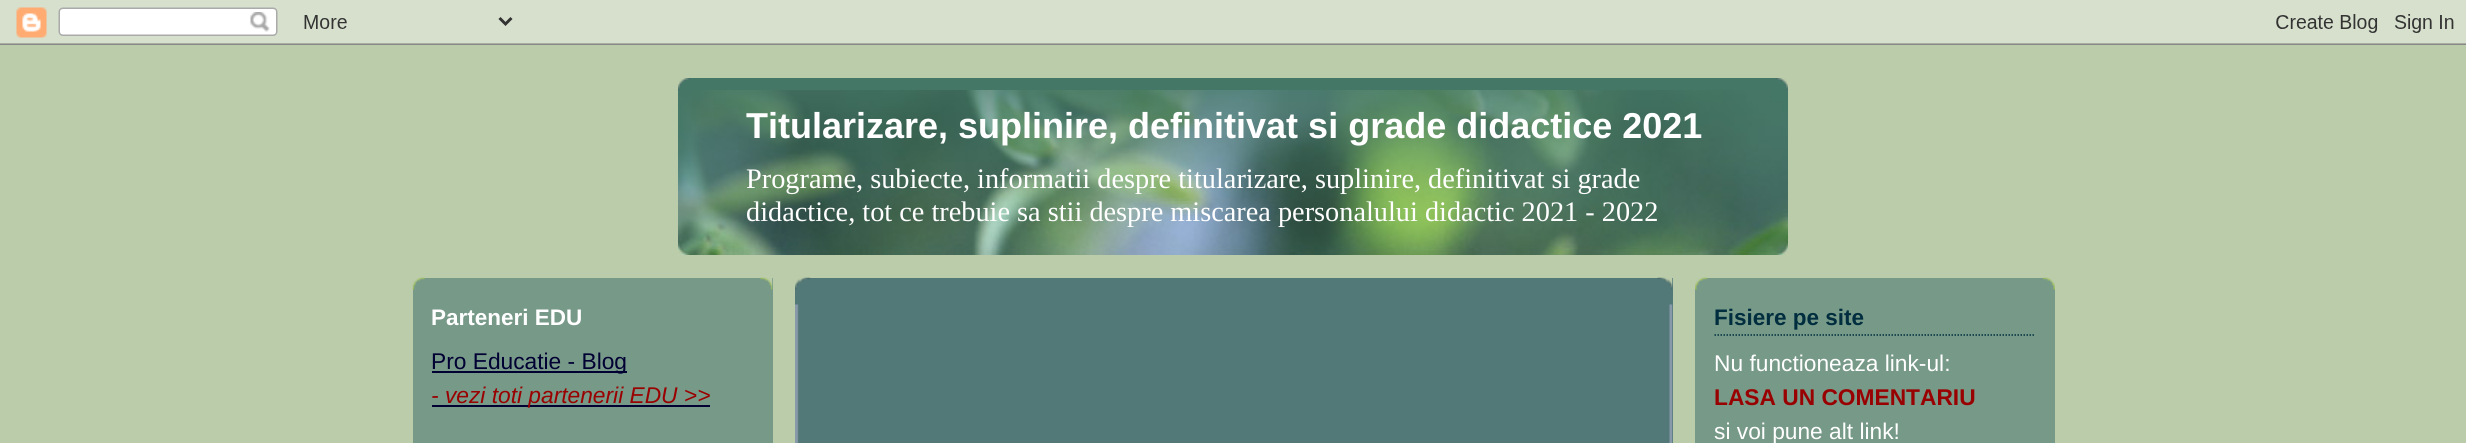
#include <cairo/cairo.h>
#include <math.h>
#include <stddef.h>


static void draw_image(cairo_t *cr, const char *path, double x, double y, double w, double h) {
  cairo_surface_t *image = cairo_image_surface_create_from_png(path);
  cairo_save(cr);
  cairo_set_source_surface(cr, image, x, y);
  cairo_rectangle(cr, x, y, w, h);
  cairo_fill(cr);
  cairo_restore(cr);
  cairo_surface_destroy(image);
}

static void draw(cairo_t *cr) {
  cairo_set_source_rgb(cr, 187 / 255.0, 204 / 255.0, 170 / 255.0);
  cairo_paint(cr);
  draw_image(cr, "images/1.png", 0, 0, 2466, 45);
  cairo_set_source_rgb(cr, 68 / 255.0, 119 / 255.0, 102 / 255.0);
  cairo_rectangle(cr, 679, 78, 1108, 12);
  cairo_fill(cr);
  draw_image(cr, "images/2.png", 678, 78, 1110, 12);
  draw_image(cr, "images/3.png", 678, 90, 1110, 165);
  cairo_set_source_rgb(cr, 119 / 255.0, 153 / 255.0, 136 / 255.0);
  cairo_rectangle(cr, 413, 278, 360, 165);
  cairo_fill(cr);
  draw_image(cr, "images/4.png", 412, 277, 361, 13);
  cairo_set_source_rgb(cr, 0, 0, 51 / 255.0);
  cairo_rectangle(cr, 432, 371, 195, 2);
  cairo_fill(cr);
  cairo_rectangle(cr, 432, 405, 278, 2);
  cairo_fill(cr);
  cairo_set_source_rgb(cr, 83 / 255.0, 120 / 255.0, 120 / 255.0);
  cairo_rectangle(cr, 795, 278, 878, 165);
  cairo_fill(cr);
  draw_image(cr, "images/5.png", 795, 277, 878, 13);
  draw_image(cr, "images/6.png", 795, 304, 878, 139);
  cairo_set_source_rgb(cr, 119 / 255.0, 153 / 255.0, 136 / 255.0);
  cairo_rectangle(cr, 1695, 278, 360, 165);
  cairo_fill(cr);
  draw_image(cr, "images/7.png", 1695, 277, 360, 13);
  cairo_new_path(cr);
  cairo_move_to(cr, 1714.5, 335);
  cairo_line_to(cr, 2035.5, 335);
  cairo_set_source_rgb(cr, 0, 46 / 255.0, 63 / 255.0);
  cairo_set_line_width(cr, 1.5);
  cairo_set_dash(cr, (double[]){1.5, 1.5}, 2, 0);
  cairo_stroke(cr);
  cairo_select_font_face(cr, "Liberation Sans", CAIRO_FONT_SLANT_NORMAL, CAIRO_FONT_WEIGHT_BOLD);
  cairo_set_font_size(cr, 36);
  cairo_set_source_rgb(cr, 1, 1, 1);
  cairo_move_to(cr, 746, 138);
  cairo_show_text(cr, "Titularizare, suplinire, definitivat si grade didactice 2021");
  cairo_select_font_face(cr, "Liberation Serif", CAIRO_FONT_SLANT_NORMAL, CAIRO_FONT_WEIGHT_NORMAL);
  cairo_set_font_size(cr, 28.3);
  cairo_move_to(cr, 746, 188);
  cairo_show_text(cr, "Programe, subiecte, informatii despre titularizare, suplinire, definitivat si grade");
  cairo_move_to(cr, 746, 221);
  cairo_show_text(cr, "didactice, tot ce trebuie sa stii despre miscarea personalului didactic 2021 - 2022");
  cairo_select_font_face(cr, "Liberation Sans", CAIRO_FONT_SLANT_NORMAL, CAIRO_FONT_WEIGHT_BOLD);
  cairo_set_font_size(cr, 22.5);
  cairo_move_to(cr, 431, 325);
  cairo_show_text(cr, "Parteneri EDU");
  cairo_select_font_face(cr, "Liberation Sans", CAIRO_FONT_SLANT_NORMAL, CAIRO_FONT_WEIGHT_NORMAL);
  cairo_set_font_size(cr, 22.75);
  cairo_set_source_rgb(cr, 0, 0, 51 / 255.0);
  cairo_move_to(cr, 431, 369);
  cairo_show_text(cr, "Pro Educatie - Blog");
  cairo_select_font_face(cr, "Liberation Sans", CAIRO_FONT_SLANT_ITALIC, CAIRO_FONT_WEIGHT_NORMAL);
  cairo_set_source_rgb(cr, 153 / 255.0, 0, 0);
  cairo_move_to(cr, 431, 403);
  cairo_show_text(cr, "- vezi toti partenerii EDU >>");
  cairo_select_font_face(cr, "Liberation Sans", CAIRO_FONT_SLANT_NORMAL, CAIRO_FONT_WEIGHT_BOLD);
  cairo_set_font_size(cr, 22.5);
  cairo_set_source_rgb(cr, 0, 46 / 255.0, 63 / 255.0);
  cairo_move_to(cr, 1714, 325);
  cairo_show_text(cr, "Fisiere pe site");
  cairo_select_font_face(cr, "Liberation Sans", CAIRO_FONT_SLANT_NORMAL, CAIRO_FONT_WEIGHT_NORMAL);
  cairo_set_font_size(cr, 22.75);
  cairo_set_source_rgb(cr, 1, 1, 1);
  cairo_move_to(cr, 1714, 371);
  cairo_show_text(cr, "Nu functioneaza link-ul:");
  cairo_select_font_face(cr, "Liberation Sans", CAIRO_FONT_SLANT_NORMAL, CAIRO_FONT_WEIGHT_BOLD);
  cairo_set_source_rgb(cr, 153 / 255.0, 0, 0);
  cairo_move_to(cr, 1714, 405);
  cairo_show_text(cr, "LASA UN COMENTARIU");
  cairo_select_font_face(cr, "Liberation Sans", CAIRO_FONT_SLANT_NORMAL, CAIRO_FONT_WEIGHT_NORMAL);
  cairo_set_source_rgb(cr, 1, 1, 1);
  cairo_move_to(cr, 1714, 439);
  cairo_show_text(cr, "si voi pune alt link!");
}

int main(void) {
  cairo_surface_t *surface = cairo_image_surface_create(CAIRO_FORMAT_RGB24, 2466, 443);
  cairo_t *cr = cairo_create(surface);
  cairo_font_options_t *options = cairo_font_options_create();
  cairo_font_options_set_hint_metrics(options, CAIRO_HINT_METRICS_OFF);
  cairo_font_options_set_hint_style(options, CAIRO_HINT_STYLE_NONE);
  cairo_set_font_options(cr, options);
  cairo_set_miter_limit(cr, 4);
  draw(cr);
  cairo_surface_write_to_png(surface, "out.png");
  cairo_font_options_destroy(options);
  cairo_destroy(cr);
  cairo_surface_destroy(surface);
  return 0;
}
